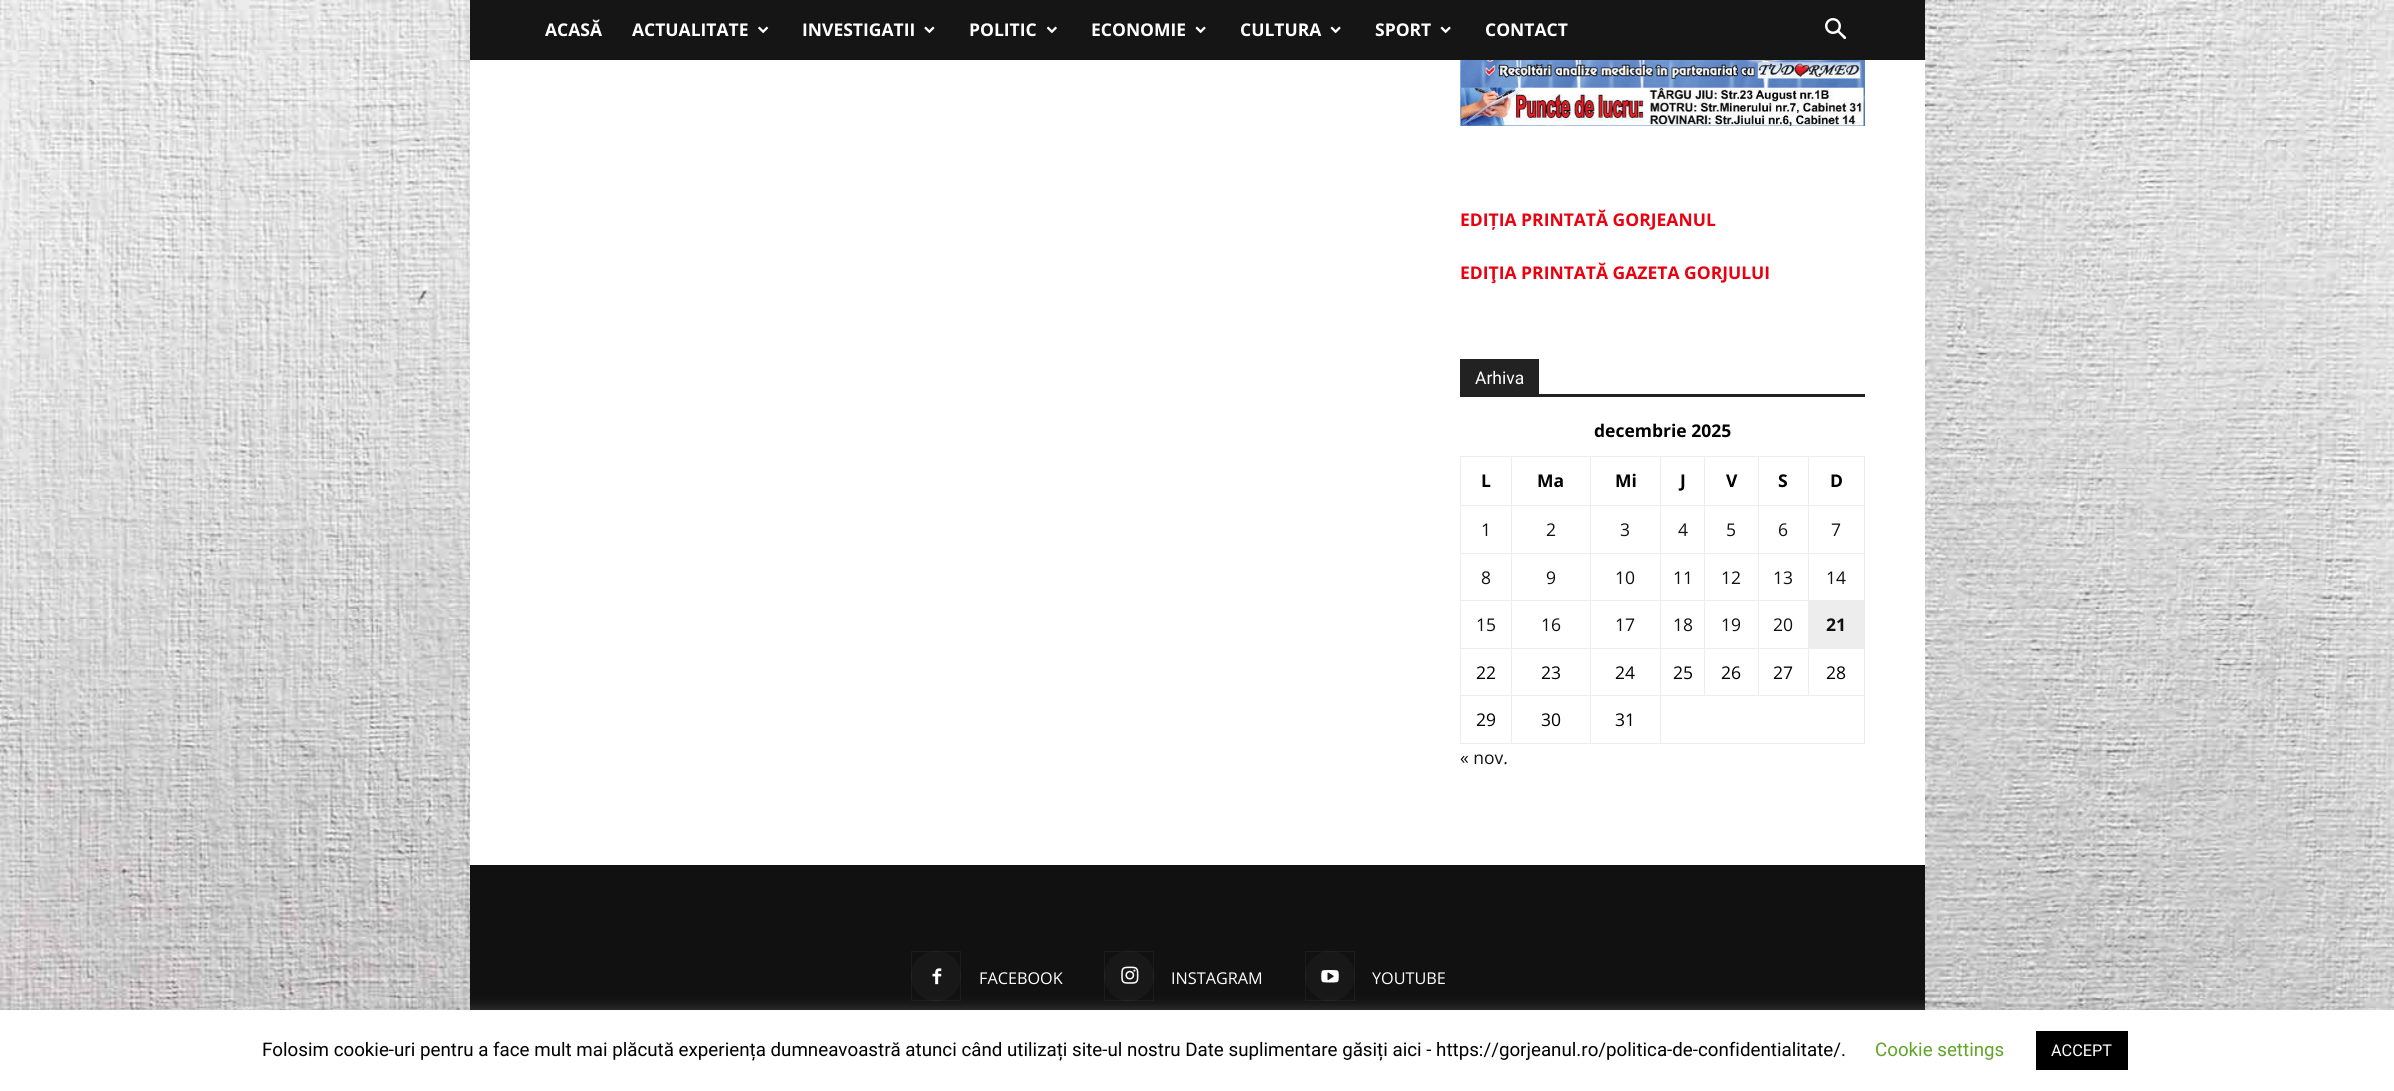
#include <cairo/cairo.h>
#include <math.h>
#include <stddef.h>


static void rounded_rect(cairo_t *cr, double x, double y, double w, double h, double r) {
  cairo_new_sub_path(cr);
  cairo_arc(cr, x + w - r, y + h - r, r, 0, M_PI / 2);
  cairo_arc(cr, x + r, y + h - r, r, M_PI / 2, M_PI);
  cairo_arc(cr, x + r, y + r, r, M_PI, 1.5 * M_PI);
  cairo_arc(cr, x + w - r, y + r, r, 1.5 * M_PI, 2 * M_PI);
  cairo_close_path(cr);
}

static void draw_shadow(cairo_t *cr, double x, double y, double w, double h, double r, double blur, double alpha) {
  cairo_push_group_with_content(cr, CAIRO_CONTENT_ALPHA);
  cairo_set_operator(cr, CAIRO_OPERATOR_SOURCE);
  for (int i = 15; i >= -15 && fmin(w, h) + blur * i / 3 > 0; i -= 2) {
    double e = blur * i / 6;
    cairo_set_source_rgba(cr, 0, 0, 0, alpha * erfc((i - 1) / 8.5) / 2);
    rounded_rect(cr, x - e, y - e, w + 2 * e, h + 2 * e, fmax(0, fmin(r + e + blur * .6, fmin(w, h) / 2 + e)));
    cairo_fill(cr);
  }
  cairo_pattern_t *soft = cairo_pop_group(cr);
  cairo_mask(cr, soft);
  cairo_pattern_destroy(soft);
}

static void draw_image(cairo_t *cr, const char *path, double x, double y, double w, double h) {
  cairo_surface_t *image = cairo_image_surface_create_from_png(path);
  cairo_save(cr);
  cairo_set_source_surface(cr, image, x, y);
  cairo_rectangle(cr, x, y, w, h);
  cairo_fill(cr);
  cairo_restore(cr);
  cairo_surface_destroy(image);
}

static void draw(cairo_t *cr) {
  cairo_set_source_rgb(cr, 1, 1, 1);
  cairo_paint(cr);
  draw_image(cr, "images/1.png", 0, 0, 2394, 1010);
  cairo_set_source_rgb(cr, 21 / 255.0, 21 / 255.0, 21 / 255.0);
  cairo_rectangle(cr, 470, 0, 1455, 60);
  cairo_fill(cr);
  draw_image(cr, "images/2.png", 758, 26, 11, 8);
  draw_image(cr, "images/3.png", 924, 26, 11, 8);
  draw_image(cr, "images/4.png", 1046, 26, 11, 8);
  draw_image(cr, "images/5.png", 1195, 26, 11, 8);
  draw_image(cr, "images/5.png", 1330, 26, 11, 8);
  draw_image(cr, "images/5.png", 1440, 26, 11, 8);
  draw_image(cr, "images/6.png", 1825, 18, 22, 22);
  cairo_set_source_rgb(cr, 1, 1, 1);
  cairo_rectangle(cr, 470, 60, 1455, 805);
  cairo_fill(cr);
  draw_image(cr, "images/7.png", 1460, 60, 405, 66);
  cairo_set_source_rgb(cr, 34 / 255.0, 34 / 255.0, 34 / 255.0);
  cairo_rectangle(cr, 1460, 394, 405, 3);
  cairo_fill(cr);
  cairo_rectangle(cr, 1460, 359, 79, 35);
  cairo_fill(cr);
  cairo_set_source_rgb(cr, 237 / 255.0, 237 / 255.0, 237 / 255.0);
  cairo_rectangle(cr, 1808, 456, 57, 1);
  cairo_fill(cr);
  cairo_rectangle(cr, 1808, 505, 57, 1);
  cairo_fill(cr);
  cairo_rectangle(cr, 1808, 553, 57, 1);
  cairo_fill(cr);
  cairo_rectangle(cr, 1808, 600, 57, 1);
  cairo_fill(cr);
  cairo_rectangle(cr, 1808, 648, 57, 1);
  cairo_fill(cr);
  cairo_rectangle(cr, 1660, 695, 205, 1);
  cairo_fill(cr);
  cairo_rectangle(cr, 1808, 648, 1, 48);
  cairo_fill(cr);
  cairo_rectangle(cr, 1758, 648, 51, 1);
  cairo_fill(cr);
  cairo_rectangle(cr, 1808, 600, 1, 49);
  cairo_fill(cr);
  cairo_rectangle(cr, 1758, 600, 51, 1);
  cairo_fill(cr);
  cairo_rectangle(cr, 1808, 553, 1, 48);
  cairo_fill(cr);
  cairo_rectangle(cr, 1758, 553, 51, 1);
  cairo_fill(cr);
  cairo_rectangle(cr, 1808, 505, 1, 49);
  cairo_fill(cr);
  cairo_rectangle(cr, 1758, 505, 51, 1);
  cairo_fill(cr);
  cairo_rectangle(cr, 1808, 456, 1, 50);
  cairo_fill(cr);
  cairo_rectangle(cr, 1758, 456, 51, 1);
  cairo_fill(cr);
  cairo_rectangle(cr, 1758, 648, 1, 48);
  cairo_fill(cr);
  cairo_rectangle(cr, 1704, 648, 55, 1);
  cairo_fill(cr);
  cairo_rectangle(cr, 1758, 600, 1, 49);
  cairo_fill(cr);
  cairo_rectangle(cr, 1704, 600, 55, 1);
  cairo_fill(cr);
  cairo_rectangle(cr, 1758, 553, 1, 48);
  cairo_fill(cr);
  cairo_rectangle(cr, 1704, 553, 55, 1);
  cairo_fill(cr);
  cairo_rectangle(cr, 1758, 505, 1, 49);
  cairo_fill(cr);
  cairo_rectangle(cr, 1704, 505, 55, 1);
  cairo_fill(cr);
  cairo_rectangle(cr, 1758, 456, 1, 50);
  cairo_fill(cr);
  cairo_rectangle(cr, 1704, 456, 55, 1);
  cairo_fill(cr);
  cairo_rectangle(cr, 1704, 648, 1, 48);
  cairo_fill(cr);
  cairo_rectangle(cr, 1660, 648, 45, 1);
  cairo_fill(cr);
  cairo_rectangle(cr, 1704, 600, 1, 49);
  cairo_fill(cr);
  cairo_rectangle(cr, 1660, 600, 45, 1);
  cairo_fill(cr);
  cairo_rectangle(cr, 1704, 553, 1, 48);
  cairo_fill(cr);
  cairo_rectangle(cr, 1660, 553, 45, 1);
  cairo_fill(cr);
  cairo_rectangle(cr, 1704, 505, 1, 49);
  cairo_fill(cr);
  cairo_rectangle(cr, 1660, 505, 45, 1);
  cairo_fill(cr);
  cairo_rectangle(cr, 1704, 456, 1, 50);
  cairo_fill(cr);
  cairo_rectangle(cr, 1660, 456, 45, 1);
  cairo_fill(cr);
  cairo_rectangle(cr, 1864, 695, 1, 49);
  cairo_fill(cr);
  cairo_rectangle(cr, 1660, 743, 205, 1);
  cairo_fill(cr);
  cairo_rectangle(cr, 1660, 695, 1, 49);
  cairo_fill(cr);
  cairo_rectangle(cr, 1590, 695, 71, 1);
  cairo_fill(cr);
  cairo_rectangle(cr, 1660, 648, 1, 48);
  cairo_fill(cr);
  cairo_rectangle(cr, 1590, 648, 71, 1);
  cairo_fill(cr);
  cairo_rectangle(cr, 1660, 600, 1, 49);
  cairo_fill(cr);
  cairo_rectangle(cr, 1590, 600, 71, 1);
  cairo_fill(cr);
  cairo_rectangle(cr, 1660, 553, 1, 48);
  cairo_fill(cr);
  cairo_rectangle(cr, 1590, 553, 71, 1);
  cairo_fill(cr);
  cairo_rectangle(cr, 1660, 505, 1, 49);
  cairo_fill(cr);
  cairo_rectangle(cr, 1590, 505, 71, 1);
  cairo_fill(cr);
  cairo_rectangle(cr, 1660, 456, 1, 50);
  cairo_fill(cr);
  cairo_rectangle(cr, 1590, 456, 71, 1);
  cairo_fill(cr);
  cairo_rectangle(cr, 1590, 743, 71, 1);
  cairo_fill(cr);
  cairo_rectangle(cr, 1590, 695, 1, 49);
  cairo_fill(cr);
  cairo_rectangle(cr, 1511, 695, 80, 1);
  cairo_fill(cr);
  cairo_rectangle(cr, 1590, 648, 1, 48);
  cairo_fill(cr);
  cairo_rectangle(cr, 1511, 648, 80, 1);
  cairo_fill(cr);
  cairo_rectangle(cr, 1590, 600, 1, 49);
  cairo_fill(cr);
  cairo_rectangle(cr, 1511, 600, 80, 1);
  cairo_fill(cr);
  cairo_rectangle(cr, 1590, 553, 1, 48);
  cairo_fill(cr);
  cairo_rectangle(cr, 1511, 553, 80, 1);
  cairo_fill(cr);
  cairo_rectangle(cr, 1590, 505, 1, 49);
  cairo_fill(cr);
  cairo_rectangle(cr, 1511, 505, 80, 1);
  cairo_fill(cr);
  cairo_rectangle(cr, 1590, 456, 1, 50);
  cairo_fill(cr);
  cairo_rectangle(cr, 1511, 456, 80, 1);
  cairo_fill(cr);
  cairo_rectangle(cr, 1511, 743, 80, 1);
  cairo_fill(cr);
  cairo_rectangle(cr, 1511, 695, 1, 49);
  cairo_fill(cr);
  cairo_rectangle(cr, 1460, 695, 53, 1);
  cairo_fill(cr);
  cairo_rectangle(cr, 1511, 648, 1, 48);
  cairo_fill(cr);
  cairo_rectangle(cr, 1460, 648, 53, 1);
  cairo_fill(cr);
  cairo_rectangle(cr, 1511, 600, 1, 49);
  cairo_fill(cr);
  cairo_rectangle(cr, 1460, 600, 53, 1);
  cairo_fill(cr);
  cairo_rectangle(cr, 1511, 553, 1, 48);
  cairo_fill(cr);
  cairo_rectangle(cr, 1460, 553, 53, 1);
  cairo_fill(cr);
  cairo_rectangle(cr, 1511, 505, 1, 49);
  cairo_fill(cr);
  cairo_rectangle(cr, 1460, 505, 53, 1);
  cairo_fill(cr);
  cairo_rectangle(cr, 1511, 456, 1, 50);
  cairo_fill(cr);
  cairo_rectangle(cr, 1460, 456, 53, 1);
  cairo_fill(cr);
  cairo_rectangle(cr, 1460, 743, 53, 1);
  cairo_fill(cr);
  cairo_rectangle(cr, 1460, 695, 1, 49);
  cairo_fill(cr);
  cairo_rectangle(cr, 1460, 648, 1, 48);
  cairo_fill(cr);
  cairo_rectangle(cr, 1460, 600, 1, 49);
  cairo_fill(cr);
  cairo_rectangle(cr, 1460, 553, 1, 48);
  cairo_fill(cr);
  cairo_rectangle(cr, 1460, 505, 1, 49);
  cairo_fill(cr);
  cairo_rectangle(cr, 1460, 456, 1, 50);
  cairo_fill(cr);
  cairo_rectangle(cr, 1864, 553, 1, 48);
  cairo_fill(cr);
  cairo_rectangle(cr, 1864, 505, 1, 49);
  cairo_fill(cr);
  cairo_rectangle(cr, 1864, 456, 1, 50);
  cairo_fill(cr);
  cairo_rectangle(cr, 1809, 601, 56, 47);
  cairo_fill(cr);
  cairo_rectangle(cr, 1864, 648, 1, 48);
  cairo_fill(cr);
  cairo_set_source_rgb(cr, 17 / 255.0, 17 / 255.0, 17 / 255.0);
  cairo_rectangle(cr, 470, 865, 1455, 145);
  cairo_fill(cr);
  cairo_set_source_rgb(cr, 24 / 255.0, 24 / 255.0, 24 / 255.0);
  cairo_arc(cr, 936, 976, 25, 0, 2 * M_PI);
  cairo_fill(cr);
  draw_image(cr, "images/8.png", 932, 968, 10, 17);
  cairo_rectangle(cr, 911.5, 951.5, 49, 49);
  cairo_set_source_rgba(cr, 1, 1, 1, 0.05);
  cairo_set_line_width(cr, 1);
  cairo_stroke(cr);
  cairo_set_source_rgb(cr, 24 / 255.0, 24 / 255.0, 24 / 255.0);
  cairo_arc(cr, 1129, 976, 25, 0, 2 * M_PI);
  cairo_fill(cr);
  draw_image(cr, "images/9.png", 1121, 966, 18, 18);
  cairo_rectangle(cr, 1104.5, 951.5, 49, 49);
  cairo_set_source_rgba(cr, 1, 1, 1, 0.05);
  cairo_stroke(cr);
  cairo_set_source_rgb(cr, 24 / 255.0, 24 / 255.0, 24 / 255.0);
  cairo_arc(cr, 1330, 976, 25, 0, 2 * M_PI);
  cairo_fill(cr);
  draw_image(cr, "images/10.png", 1321, 970, 18, 13);
  cairo_rectangle(cr, 1305.5, 951.5, 49, 49);
  cairo_set_source_rgba(cr, 1, 1, 1, 0.05);
  cairo_stroke(cr);
  cairo_set_source_rgb(cr, 172 / 255.0, 171 / 255.0, 171 / 255.0);
  draw_shadow(cr, 0, 1009, 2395, 81, 0, 6, 0.3);
  cairo_set_source_rgb(cr, 1, 1, 1);
  cairo_rectangle(cr, 0, 1010, 2394, 81);
  cairo_fill(cr);
  cairo_set_source_rgb(cr, 0, 0, 0);
  cairo_rectangle(cr, 2036, 1031, 92, 39);
  cairo_fill(cr);
  cairo_select_font_face(cr, "Open Sans", CAIRO_FONT_SLANT_NORMAL, CAIRO_FONT_WEIGHT_BOLD);
  cairo_set_font_size(cr, 17.5);
  cairo_set_source_rgb(cr, 1, 1, 1);
  cairo_move_to(cr, 545, 36);
  cairo_show_text(cr, "ACASĂ");
  cairo_move_to(cr, 632, 36);
  cairo_show_text(cr, "ACTUALITATE");
  cairo_move_to(cr, 802, 36);
  cairo_show_text(cr, "INVESTIGATII");
  cairo_move_to(cr, 969, 36);
  cairo_show_text(cr, "POLITIC");
  cairo_move_to(cr, 1091, 36);
  cairo_show_text(cr, "ECONOMIE");
  cairo_move_to(cr, 1240, 36);
  cairo_show_text(cr, "CULTURA");
  cairo_move_to(cr, 1375, 36);
  cairo_show_text(cr, "SPORT");
  cairo_move_to(cr, 1485, 36);
  cairo_show_text(cr, "CONTACT");
  cairo_set_source_rgb(cr, 234 / 255.0, 0, 15 / 255.0);
  cairo_move_to(cr, 1460, 226);
  cairo_show_text(cr, "EDIȚIA PRINTATĂ GORJEANUL");
  cairo_move_to(cr, 1460, 279);
  cairo_show_text(cr, "EDIŢIA PRINTATĂ GAZETA GORJULUI");
  cairo_select_font_face(cr, "Roboto", CAIRO_FONT_SLANT_NORMAL, CAIRO_FONT_WEIGHT_NORMAL);
  cairo_set_source_rgb(cr, 1, 1, 1);
  cairo_move_to(cr, 1475, 384);
  cairo_show_text(cr, "Arhiva");
  cairo_select_font_face(cr, "Open Sans", CAIRO_FONT_SLANT_NORMAL, CAIRO_FONT_WEIGHT_BOLD);
  cairo_set_source_rgb(cr, 0, 0, 0);
  cairo_move_to(cr, 1594, 437);
  cairo_show_text(cr, "decembrie 2025");
  cairo_move_to(cr, 1481, 487);
  cairo_show_text(cr, "L");
  cairo_move_to(cr, 1537, 487);
  cairo_show_text(cr, "Ma");
  cairo_move_to(cr, 1615, 487);
  cairo_show_text(cr, "Mi");
  cairo_move_to(cr, 1680, 487);
  cairo_show_text(cr, "J");
  cairo_move_to(cr, 1726, 487);
  cairo_show_text(cr, "V");
  cairo_move_to(cr, 1778, 487);
  cairo_show_text(cr, "S");
  cairo_move_to(cr, 1830, 487);
  cairo_show_text(cr, "D");
  cairo_select_font_face(cr, "Open Sans", CAIRO_FONT_SLANT_NORMAL, CAIRO_FONT_WEIGHT_NORMAL);
  cairo_set_source_rgb(cr, 17 / 255.0, 17 / 255.0, 17 / 255.0);
  cairo_move_to(cr, 1481, 536);
  cairo_show_text(cr, "1");
  cairo_move_to(cr, 1546, 536);
  cairo_show_text(cr, "2");
  cairo_move_to(cr, 1620, 536);
  cairo_show_text(cr, "3");
  cairo_move_to(cr, 1678, 536);
  cairo_show_text(cr, "4");
  cairo_move_to(cr, 1726, 536);
  cairo_show_text(cr, "5");
  cairo_move_to(cr, 1778, 536);
  cairo_show_text(cr, "6");
  cairo_move_to(cr, 1831, 536);
  cairo_show_text(cr, "7");
  cairo_move_to(cr, 1481, 584);
  cairo_show_text(cr, "8");
  cairo_move_to(cr, 1546, 584);
  cairo_show_text(cr, "9");
  cairo_move_to(cr, 1615, 584);
  cairo_show_text(cr, "10");
  cairo_move_to(cr, 1673, 584);
  cairo_show_text(cr, "11");
  cairo_move_to(cr, 1721, 584);
  cairo_show_text(cr, "12");
  cairo_move_to(cr, 1773, 584);
  cairo_show_text(cr, "13");
  cairo_move_to(cr, 1826, 584);
  cairo_show_text(cr, "14");
  cairo_move_to(cr, 1476, 631);
  cairo_show_text(cr, "15");
  cairo_move_to(cr, 1541, 631);
  cairo_show_text(cr, "16");
  cairo_move_to(cr, 1615, 631);
  cairo_show_text(cr, "17");
  cairo_move_to(cr, 1673, 631);
  cairo_show_text(cr, "18");
  cairo_move_to(cr, 1721, 631);
  cairo_show_text(cr, "19");
  cairo_move_to(cr, 1773, 631);
  cairo_show_text(cr, "20");
  cairo_select_font_face(cr, "Open Sans", CAIRO_FONT_SLANT_NORMAL, CAIRO_FONT_WEIGHT_BOLD);
  cairo_move_to(cr, 1826, 631);
  cairo_show_text(cr, "21");
  cairo_select_font_face(cr, "Open Sans", CAIRO_FONT_SLANT_NORMAL, CAIRO_FONT_WEIGHT_NORMAL);
  cairo_set_source_rgb(cr, 0, 0, 0);
  cairo_move_to(cr, 1476, 679);
  cairo_show_text(cr, "22");
  cairo_move_to(cr, 1541, 679);
  cairo_show_text(cr, "23");
  cairo_move_to(cr, 1615, 679);
  cairo_show_text(cr, "24");
  cairo_move_to(cr, 1673, 679);
  cairo_show_text(cr, "25");
  cairo_move_to(cr, 1721, 679);
  cairo_show_text(cr, "26");
  cairo_move_to(cr, 1773, 679);
  cairo_show_text(cr, "27");
  cairo_move_to(cr, 1826, 679);
  cairo_show_text(cr, "28");
  cairo_move_to(cr, 1476, 726);
  cairo_show_text(cr, "29");
  cairo_move_to(cr, 1541, 726);
  cairo_show_text(cr, "30");
  cairo_move_to(cr, 1615, 726);
  cairo_show_text(cr, "31");
  cairo_set_source_rgb(cr, 17 / 255.0, 17 / 255.0, 17 / 255.0);
  cairo_move_to(cr, 1460, 764);
  cairo_show_text(cr, "« nov.");
  cairo_set_font_size(cr, 16.25);
  cairo_set_source_rgb(cr, 1, 1, 1);
  cairo_move_to(cr, 979, 984);
  cairo_show_text(cr, "FACEBOOK");
  cairo_move_to(cr, 1171, 984);
  cairo_show_text(cr, "INSTAGRAM");
  cairo_move_to(cr, 1372, 984);
  cairo_show_text(cr, "YOUTUBE");
  cairo_select_font_face(cr, "Roboto", CAIRO_FONT_SLANT_NORMAL, CAIRO_FONT_WEIGHT_NORMAL);
  cairo_set_font_size(cr, 18.75);
  cairo_set_source_rgb(cr, 0, 0, 0);
  cairo_move_to(cr, 262, 1056);
  cairo_show_text(cr, "Folosim cookie-uri pentru a face mult mai plăcută experiența dumneavoastră atunci când utilizați site-ul nostru Date suplimentare găsiți aici - https://gorjeanul.ro/politica-de-confidentialitate/.");
  cairo_set_source_rgb(cr, 98 / 255.0, 163 / 255.0, 41 / 255.0);
  cairo_move_to(cr, 1875, 1056);
  cairo_show_text(cr, "Cookie settings");
  cairo_set_font_size(cr, 16.25);
  cairo_set_source_rgb(cr, 1, 1, 1);
  cairo_move_to(cr, 2051, 1056);
  cairo_show_text(cr, "ACCEPT");
}

int main(void) {
  cairo_surface_t *surface = cairo_image_surface_create(CAIRO_FORMAT_RGB24, 2394, 1091);
  cairo_t *cr = cairo_create(surface);
  cairo_font_options_t *options = cairo_font_options_create();
  cairo_font_options_set_hint_metrics(options, CAIRO_HINT_METRICS_OFF);
  cairo_font_options_set_hint_style(options, CAIRO_HINT_STYLE_NONE);
  cairo_set_font_options(cr, options);
  cairo_set_miter_limit(cr, 4);
  draw(cr);
  cairo_surface_write_to_png(surface, "out.png");
  cairo_font_options_destroy(options);
  cairo_destroy(cr);
  cairo_surface_destroy(surface);
  return 0;
}
